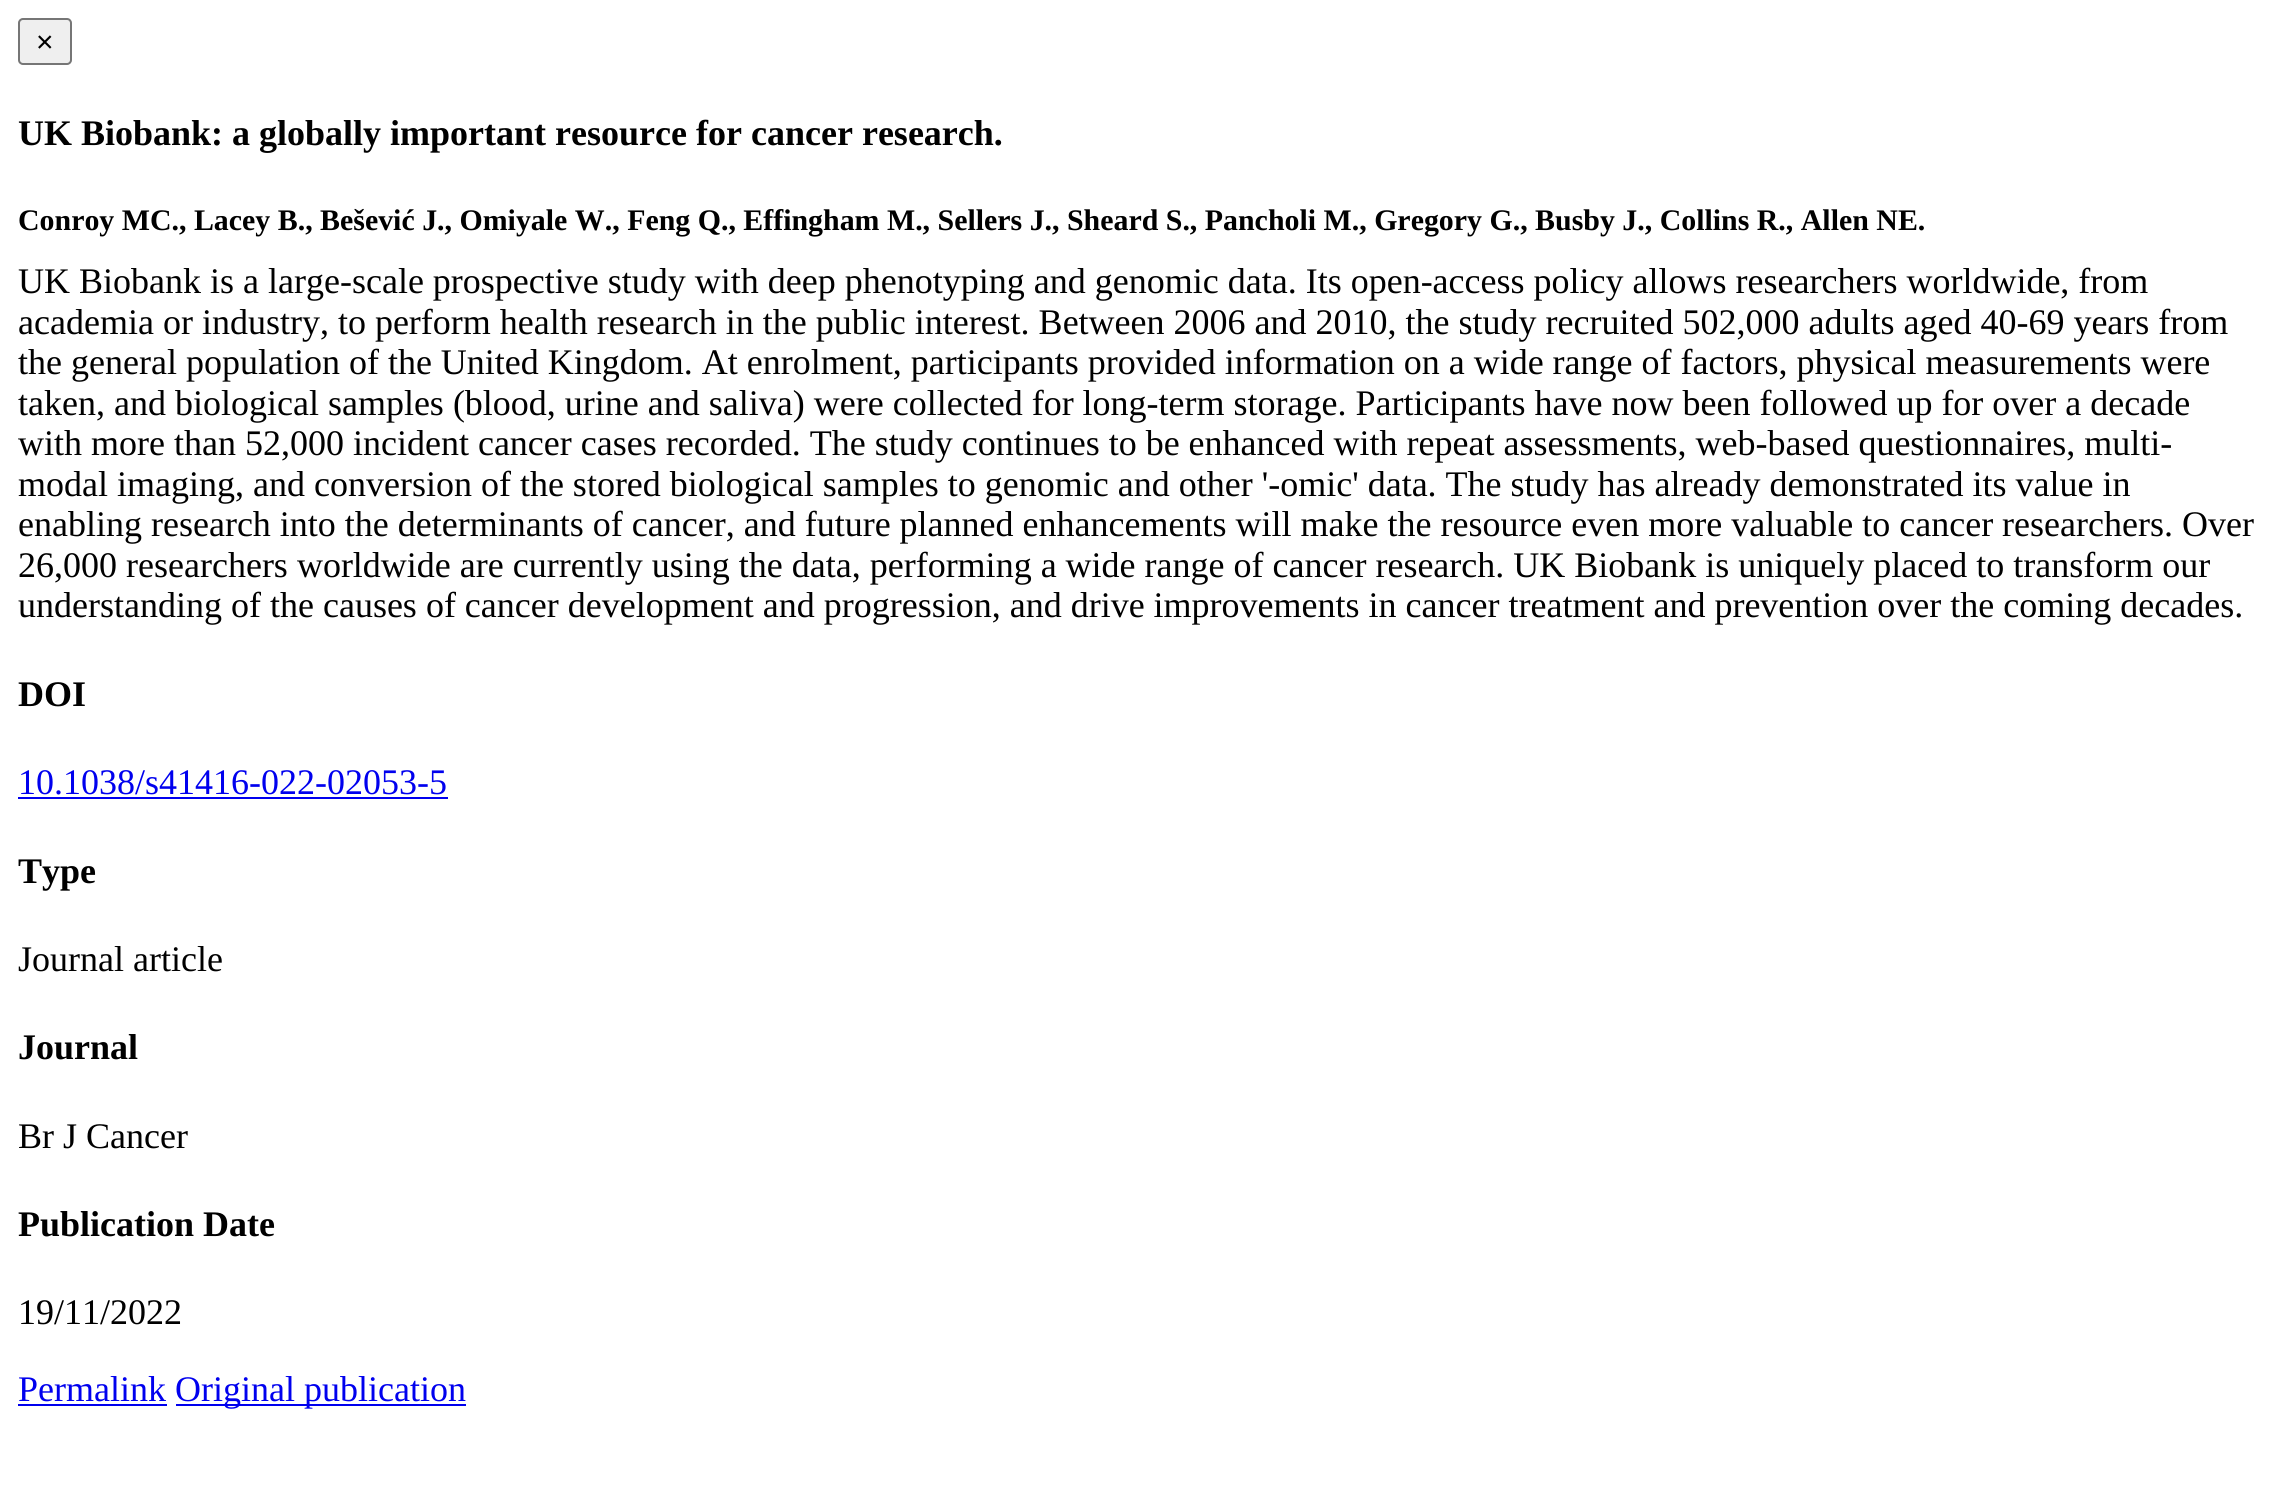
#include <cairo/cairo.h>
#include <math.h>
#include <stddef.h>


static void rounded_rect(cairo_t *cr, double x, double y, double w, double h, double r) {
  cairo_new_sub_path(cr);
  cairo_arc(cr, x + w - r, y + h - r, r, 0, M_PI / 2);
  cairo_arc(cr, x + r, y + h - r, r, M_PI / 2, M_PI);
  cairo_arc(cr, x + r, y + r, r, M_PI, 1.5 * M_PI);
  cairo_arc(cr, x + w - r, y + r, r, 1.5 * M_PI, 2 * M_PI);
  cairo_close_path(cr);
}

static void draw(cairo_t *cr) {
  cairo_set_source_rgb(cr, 1, 1, 1);
  cairo_paint(cr);
  cairo_set_source_rgb(cr, 239 / 255.0, 239 / 255.0, 239 / 255.0);
  rounded_rect(cr, 19, 19, 52, 45, 4);
  cairo_fill_preserve(cr);
  cairo_set_source_rgb(cr, 118 / 255.0, 118 / 255.0, 118 / 255.0);
  cairo_stroke(cr);
  cairo_set_source_rgb(cr, 0, 0, 238 / 255.0);
  cairo_rectangle(cr, 18, 797, 430, 2);
  cairo_fill(cr);
  cairo_rectangle(cr, 18, 1404, 149, 2);
  cairo_fill(cr);
  cairo_rectangle(cr, 176, 1404, 290, 2);
  cairo_fill(cr);
  cairo_select_font_face(cr, "Liberation Sans", CAIRO_FONT_SLANT_NORMAL, CAIRO_FONT_WEIGHT_NORMAL);
  cairo_set_font_size(cr, 30);
  cairo_set_source_rgb(cr, 0, 0, 0);
  cairo_move_to(cr, 36, 52);
  cairo_show_text(cr, "×");
  cairo_select_font_face(cr, "Liberation Serif", CAIRO_FONT_SLANT_NORMAL, CAIRO_FONT_WEIGHT_BOLD);
  cairo_set_font_size(cr, 36);
  cairo_move_to(cr, 18, 145);
  cairo_show_text(cr, "UK Biobank: a globally important resource for cancer research.");
  cairo_set_font_size(cr, 29.88);
  cairo_move_to(cr, 18, 230);
  cairo_show_text(cr, "Conroy MC., Lacey B., Bešević J., Omiyale W., Feng Q., Effingham M., Sellers J., Sheard S., Pancholi M., Gregory G., Busby J., Collins R., Allen NE.");
  cairo_select_font_face(cr, "Liberation Serif", CAIRO_FONT_SLANT_NORMAL, CAIRO_FONT_WEIGHT_NORMAL);
  cairo_set_font_size(cr, 36);
  cairo_move_to(cr, 18, 293);
  cairo_show_text(cr, "UK Biobank is a large-scale prospective study with deep phenotyping and genomic data. Its open-access policy allows researchers worldwide, from");
  cairo_move_to(cr, 18, 334);
  cairo_show_text(cr, "academia or industry, to perform health research in the public interest. Between 2006 and 2010, the study recruited 502,000 adults aged 40-69 years from");
  cairo_move_to(cr, 18, 374);
  cairo_show_text(cr, "the general population of the United Kingdom. At enrolment, participants provided information on a wide range of factors, physical measurements were");
  cairo_move_to(cr, 18, 415);
  cairo_show_text(cr, "taken, and biological samples (blood, urine and saliva) were collected for long-term storage. Participants have now been followed up for over a decade");
  cairo_move_to(cr, 18, 455);
  cairo_show_text(cr, "with more than 52,000 incident cancer cases recorded. The study continues to be enhanced with repeat assessments, web-based questionnaires, multi-");
  cairo_move_to(cr, 18, 496);
  cairo_show_text(cr, "modal imaging, and conversion of the stored biological samples to genomic and other '-omic' data. The study has already demonstrated its value in");
  cairo_move_to(cr, 18, 536);
  cairo_show_text(cr, "enabling research into the determinants of cancer, and future planned enhancements will make the resource even more valuable to cancer researchers. Over");
  cairo_move_to(cr, 18, 577);
  cairo_show_text(cr, "26,000 researchers worldwide are currently using the data, performing a wide range of cancer research. UK Biobank is uniquely placed to transform our");
  cairo_move_to(cr, 18, 617);
  cairo_show_text(cr, "understanding of the causes of cancer development and progression, and drive improvements in cancer treatment and prevention over the coming decades.");
  cairo_select_font_face(cr, "Liberation Serif", CAIRO_FONT_SLANT_NORMAL, CAIRO_FONT_WEIGHT_BOLD);
  cairo_move_to(cr, 18, 706);
  cairo_show_text(cr, "DOI");
  cairo_select_font_face(cr, "Liberation Serif", CAIRO_FONT_SLANT_NORMAL, CAIRO_FONT_WEIGHT_NORMAL);
  cairo_set_source_rgb(cr, 0, 0, 238 / 255.0);
  cairo_move_to(cr, 18, 794);
  cairo_show_text(cr, "10.1038/s41416-022-02053-5");
  cairo_select_font_face(cr, "Liberation Serif", CAIRO_FONT_SLANT_NORMAL, CAIRO_FONT_WEIGHT_BOLD);
  cairo_set_source_rgb(cr, 0, 0, 0);
  cairo_move_to(cr, 18, 883);
  cairo_show_text(cr, "Type");
  cairo_select_font_face(cr, "Liberation Serif", CAIRO_FONT_SLANT_NORMAL, CAIRO_FONT_WEIGHT_NORMAL);
  cairo_move_to(cr, 18, 971);
  cairo_show_text(cr, "Journal article");
  cairo_select_font_face(cr, "Liberation Serif", CAIRO_FONT_SLANT_NORMAL, CAIRO_FONT_WEIGHT_BOLD);
  cairo_move_to(cr, 18, 1059);
  cairo_show_text(cr, "Journal");
  cairo_select_font_face(cr, "Liberation Serif", CAIRO_FONT_SLANT_NORMAL, CAIRO_FONT_WEIGHT_NORMAL);
  cairo_move_to(cr, 18, 1148);
  cairo_show_text(cr, "Br J Cancer");
  cairo_select_font_face(cr, "Liberation Serif", CAIRO_FONT_SLANT_NORMAL, CAIRO_FONT_WEIGHT_BOLD);
  cairo_move_to(cr, 18, 1236);
  cairo_show_text(cr, "Publication Date");
  cairo_select_font_face(cr, "Liberation Serif", CAIRO_FONT_SLANT_NORMAL, CAIRO_FONT_WEIGHT_NORMAL);
  cairo_move_to(cr, 18, 1324);
  cairo_show_text(cr, "19/11/2022");
  cairo_set_source_rgb(cr, 0, 0, 238 / 255.0);
  cairo_move_to(cr, 18, 1401);
  cairo_show_text(cr, "Permalink");
  cairo_move_to(cr, 175, 1401);
  cairo_show_text(cr, "Original publication");
}

int main(void) {
  cairo_surface_t *surface = cairo_image_surface_create(CAIRO_FORMAT_RGB24, 2275, 1496);
  cairo_t *cr = cairo_create(surface);
  cairo_font_options_t *options = cairo_font_options_create();
  cairo_font_options_set_hint_metrics(options, CAIRO_HINT_METRICS_OFF);
  cairo_font_options_set_hint_style(options, CAIRO_HINT_STYLE_NONE);
  cairo_set_font_options(cr, options);
  cairo_set_miter_limit(cr, 4);
  draw(cr);
  cairo_surface_write_to_png(surface, "out.png");
  cairo_font_options_destroy(options);
  cairo_destroy(cr);
  cairo_surface_destroy(surface);
  return 0;
}
